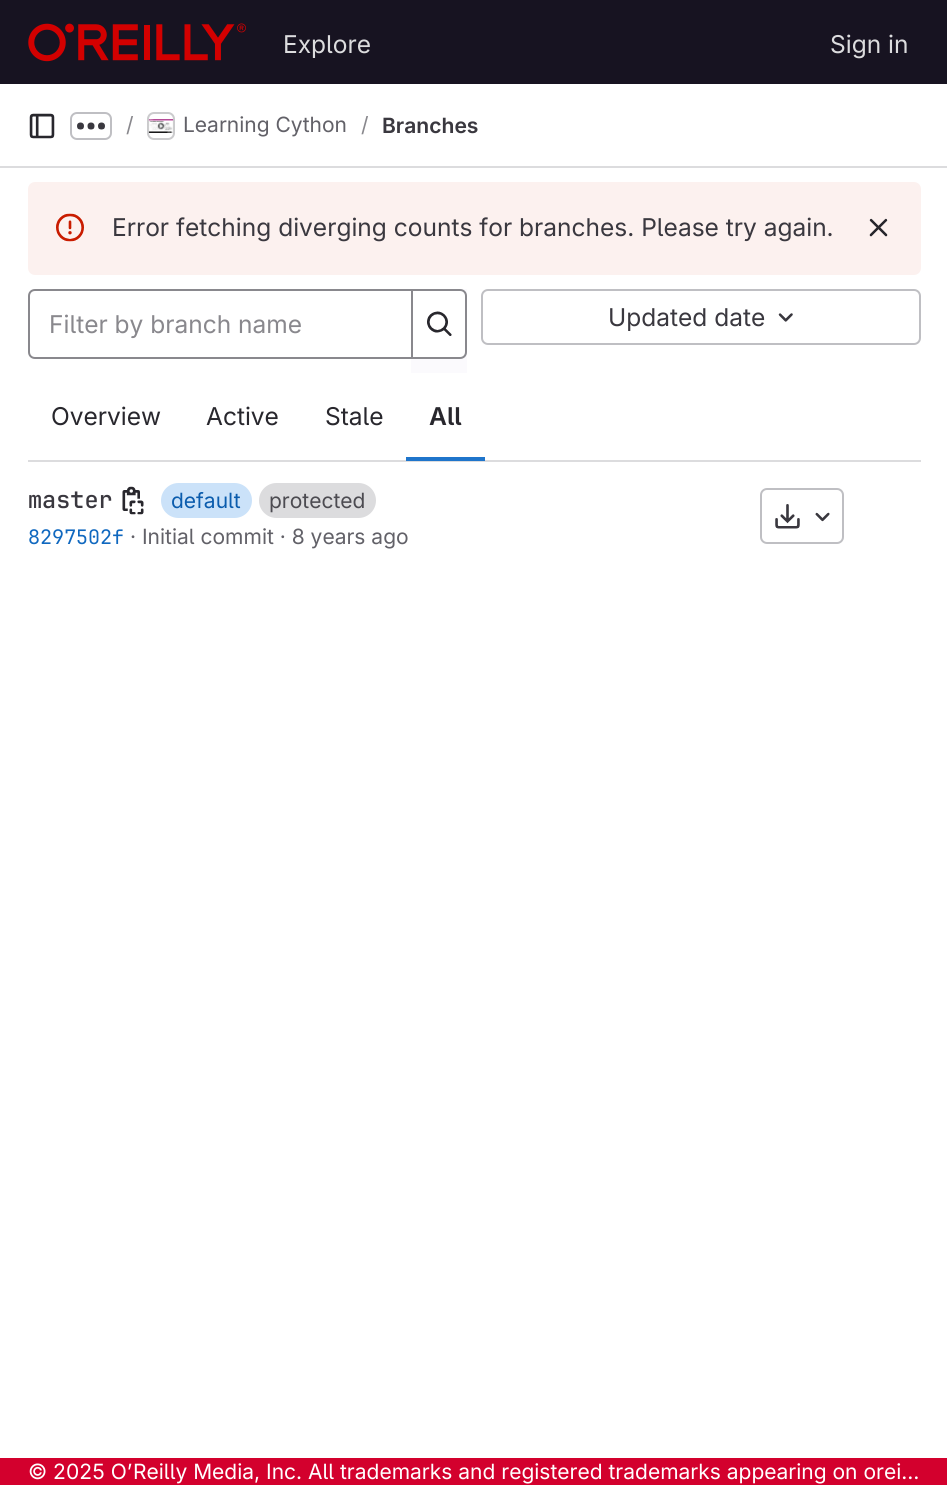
#include <cairo/cairo.h>
#include <math.h>
#include <stddef.h>


static void rounded_rect(cairo_t *cr, double x, double y, double w, double h, double r) {
  cairo_new_sub_path(cr);
  cairo_arc(cr, x + w - r, y + h - r, r, 0, M_PI / 2);
  cairo_arc(cr, x + r, y + h - r, r, M_PI / 2, M_PI);
  cairo_arc(cr, x + r, y + r, r, M_PI, 1.5 * M_PI);
  cairo_arc(cr, x + w - r, y + r, r, 1.5 * M_PI, 2 * M_PI);
  cairo_close_path(cr);
}

static void draw_image(cairo_t *cr, const char *path, double x, double y, double w, double h) {
  cairo_surface_t *image = cairo_image_surface_create_from_png(path);
  cairo_save(cr);
  cairo_set_source_surface(cr, image, x, y);
  cairo_rectangle(cr, x, y, w, h);
  cairo_fill(cr);
  cairo_restore(cr);
  cairo_surface_destroy(image);
}

static void draw(cairo_t *cr) {
  cairo_set_source_rgb(cr, 1, 1, 1);
  cairo_paint(cr);
  cairo_set_source_rgb(cr, 23 / 255.0, 19 / 255.0, 33 / 255.0);
  cairo_rectangle(cr, 0, 0, 947, 84);
  cairo_fill(cr);
  draw_image(cr, "images/1.png", 28, 23, 218, 39);
  cairo_set_source_rgb(cr, 220 / 255.0, 220 / 255.0, 222 / 255.0);
  cairo_rectangle(cr, 0, 166, 947, 2);
  cairo_fill(cr);
  draw_image(cr, "images/2.png", 29, 113, 26, 26);
  rounded_rect(cr, 71, 113, 40, 26, 6);
  cairo_set_source_rgb(cr, 191 / 255.0, 191 / 255.0, 195 / 255.0);
  cairo_stroke(cr);
  draw_image(cr, "images/3.png", 77, 122, 28, 8);
  rounded_rect(cr, 148, 113, 26, 26, 6);
  cairo_set_source_rgb(cr, 220 / 255.0, 220 / 255.0, 222 / 255.0);
  cairo_stroke(cr);
  draw_image(cr, "images/4.png", 148, 119, 26, 14);
  rounded_rect(cr, 148, 113, 26, 26, 6);
  cairo_set_source_rgba(cr, 5 / 255.0, 5 / 255.0, 6 / 255.0, 0.08);
  cairo_stroke(cr);
  cairo_set_source_rgb(cr, 252 / 255.0, 241 / 255.0, 239 / 255.0);
  rounded_rect(cr, 28, 182, 893, 93, 7);
  cairo_fill(cr);
  draw_image(cr, "images/5.png", 56, 213, 28, 29);
  draw_image(cr, "images/6.png", 869, 218, 19, 19);
  cairo_set_source_rgb(cr, 220 / 255.0, 220 / 255.0, 222 / 255.0);
  cairo_rectangle(cr, 28, 460, 893, 2);
  cairo_fill(cr);
  cairo_set_source_rgb(cr, 251 / 255.0, 250 / 255.0, 253 / 255.0);
  cairo_rectangle(cr, 411, 289, 56, 84);
  cairo_fill(cr);
  cairo_set_source_rgb(cr, 1, 1, 1);
  cairo_new_path(cr);
  cairo_move_to(cr, 35, 290);
  cairo_line_to(cr, 412, 290);
  cairo_line_to(cr, 412, 358);
  cairo_line_to(cr, 35, 358);
  cairo_curve_to(cr, 31.5, 358, 29, 355.5, 29, 352);
  cairo_line_to(cr, 29, 296);
  cairo_curve_to(cr, 29, 292.5, 31.5, 290, 35, 290);
  cairo_close_path(cr);
  cairo_fill_preserve(cr);
  cairo_set_source_rgb(cr, 137 / 255.0, 136 / 255.0, 141 / 255.0);
  cairo_stroke(cr);
  cairo_set_source_rgb(cr, 1, 1, 1);
  cairo_new_path(cr);
  cairo_move_to(cr, 412, 290);
  cairo_line_to(cr, 460, 290);
  cairo_curve_to(cr, 463.5, 290, 466, 292.5, 466, 296);
  cairo_line_to(cr, 466, 352);
  cairo_curve_to(cr, 466, 355.5, 463.5, 358, 460, 358);
  cairo_line_to(cr, 412, 358);
  cairo_close_path(cr);
  cairo_fill_preserve(cr);
  cairo_set_source_rgb(cr, 137 / 255.0, 136 / 255.0, 141 / 255.0);
  cairo_stroke(cr);
  draw_image(cr, "images/7.png", 427, 311, 25, 25);
  rounded_rect(cr, 482, 290, 438, 54, 6);
  cairo_set_source_rgb(cr, 191 / 255.0, 191 / 255.0, 195 / 255.0);
  cairo_stroke(cr);
  draw_image(cr, "images/8.png", 778, 313, 15, 9);
  cairo_set_source_rgb(cr, 31 / 255.0, 117 / 255.0, 203 / 255.0);
  cairo_rectangle(cr, 406, 457, 79, 4);
  cairo_fill(cr);
  draw_image(cr, "images/9.png", 122, 486, 22, 29);
  cairo_set_source_rgb(cr, 203 / 255.0, 226 / 255.0, 249 / 255.0);
  rounded_rect(cr, 161, 483, 91, 35, 17.5);
  cairo_fill(cr);
  cairo_set_source_rgb(cr, 220 / 255.0, 220 / 255.0, 222 / 255.0);
  rounded_rect(cr, 259, 483, 117, 35, 17.5);
  cairo_fill(cr);
  rounded_rect(cr, 761, 489, 82, 54, 6);
  cairo_set_source_rgb(cr, 191 / 255.0, 191 / 255.0, 195 / 255.0);
  cairo_stroke(cr);
  draw_image(cr, "images/10.png", 775, 504, 25, 25);
  draw_image(cr, "images/11.png", 815, 512, 15, 10);
  cairo_set_source_rgb(cr, 211 / 255.0, 0, 45 / 255.0);
  cairo_rectangle(cr, 0, 1458, 947, 27);
  cairo_fill(cr);
  cairo_select_font_face(cr, "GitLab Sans", CAIRO_FONT_SLANT_NORMAL, CAIRO_FONT_WEIGHT_NORMAL);
  cairo_set_font_size(cr, 24.5);
  cairo_set_source_rgb(cr, 220 / 255.0, 220 / 255.0, 222 / 255.0);
  cairo_move_to(cr, 283, 53);
  cairo_show_text(cr, "Explore");
  cairo_move_to(cr, 830, 53);
  cairo_show_text(cr, "Sign in");
  cairo_set_font_size(cr, 21);
  cairo_set_source_rgb(cr, 137 / 255.0, 136 / 255.0, 141 / 255.0);
  cairo_move_to(cr, 126, 132);
  cairo_show_text(cr, "/");
  cairo_set_source_rgb(cr, 98 / 255.0, 97 / 255.0, 104 / 255.0);
  cairo_move_to(cr, 183, 132);
  cairo_show_text(cr, "Learning Cython");
  cairo_set_source_rgb(cr, 137 / 255.0, 136 / 255.0, 141 / 255.0);
  cairo_move_to(cr, 361, 132);
  cairo_show_text(cr, "/");
  cairo_select_font_face(cr, "GitLab Sans SemiBold", CAIRO_FONT_SLANT_NORMAL, CAIRO_FONT_WEIGHT_NORMAL);
  cairo_set_source_rgb(cr, 58 / 255.0, 56 / 255.0, 63 / 255.0);
  cairo_move_to(cr, 382, 133);
  cairo_show_text(cr, "Branches");
  cairo_select_font_face(cr, "GitLab Sans", CAIRO_FONT_SLANT_NORMAL, CAIRO_FONT_WEIGHT_NORMAL);
  cairo_set_font_size(cr, 24.5);
  cairo_move_to(cr, 112, 236);
  cairo_show_text(cr, "Error fetching diverging counts for branches. Please try again.");
  cairo_set_source_rgb(cr, 137 / 255.0, 136 / 255.0, 141 / 255.0);
  cairo_move_to(cr, 49, 333);
  cairo_show_text(cr, "Filter by branch name");
  cairo_set_source_rgb(cr, 58 / 255.0, 56 / 255.0, 63 / 255.0);
  cairo_move_to(cr, 608, 326);
  cairo_show_text(cr, "Updated date");
  cairo_set_source_rgb(cr, 40 / 255.0, 39 / 255.0, 45 / 255.0);
  cairo_move_to(cr, 51, 425);
  cairo_show_text(cr, "Overview");
  cairo_move_to(cr, 206, 425);
  cairo_show_text(cr, "Active");
  cairo_move_to(cr, 325, 425);
  cairo_show_text(cr, "Stale");
  cairo_select_font_face(cr, "GitLab Sans SemiBold", CAIRO_FONT_SLANT_NORMAL, CAIRO_FONT_WEIGHT_NORMAL);
  cairo_move_to(cr, 429, 425);
  cairo_show_text(cr, "All");
  cairo_select_font_face(cr, "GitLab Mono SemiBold", CAIRO_FONT_SLANT_NORMAL, CAIRO_FONT_WEIGHT_NORMAL);
  cairo_set_font_size(cr, 23.5);
  cairo_set_source_rgb(cr, 58 / 255.0, 56 / 255.0, 63 / 255.0);
  cairo_move_to(cr, 28, 508);
  cairo_show_text(cr, "master");
  cairo_select_font_face(cr, "GitLab Sans", CAIRO_FONT_SLANT_NORMAL, CAIRO_FONT_WEIGHT_NORMAL);
  cairo_set_font_size(cr, 21);
  cairo_set_source_rgb(cr, 11 / 255.0, 92 / 255.0, 173 / 255.0);
  cairo_move_to(cr, 171, 508);
  cairo_show_text(cr, "default");
  cairo_set_source_rgb(cr, 76 / 255.0, 75 / 255.0, 81 / 255.0);
  cairo_move_to(cr, 269, 508);
  cairo_show_text(cr, "protected");
  cairo_select_font_face(cr, "GitLab Mono", CAIRO_FONT_SLANT_NORMAL, CAIRO_FONT_WEIGHT_NORMAL);
  cairo_set_font_size(cr, 20);
  cairo_set_source_rgb(cr, 16 / 255.0, 104 / 255.0, 191 / 255.0);
  cairo_move_to(cr, 28, 544);
  cairo_show_text(cr, "8297502f");
  cairo_select_font_face(cr, "GitLab Sans", CAIRO_FONT_SLANT_NORMAL, CAIRO_FONT_WEIGHT_NORMAL);
  cairo_set_font_size(cr, 21);
  cairo_set_source_rgb(cr, 98 / 255.0, 97 / 255.0, 104 / 255.0);
  cairo_move_to(cr, 130, 544);
  cairo_show_text(cr, "· Initial commit · 8 years ago");
  cairo_set_source_rgb(cr, 1, 1, 1);
  cairo_move_to(cr, 28, 1479);
  cairo_show_text(cr, "© 2025 O’Reilly Media, Inc. All trademarks and registered trademarks appearing on orei…");
}

int main(void) {
  cairo_surface_t *surface = cairo_image_surface_create(CAIRO_FORMAT_RGB24, 947, 1485);
  cairo_t *cr = cairo_create(surface);
  cairo_font_options_t *options = cairo_font_options_create();
  cairo_font_options_set_hint_metrics(options, CAIRO_HINT_METRICS_OFF);
  cairo_font_options_set_hint_style(options, CAIRO_HINT_STYLE_NONE);
  cairo_set_font_options(cr, options);
  cairo_set_miter_limit(cr, 4);
  draw(cr);
  cairo_surface_write_to_png(surface, "out.png");
  cairo_font_options_destroy(options);
  cairo_destroy(cr);
  cairo_surface_destroy(surface);
  return 0;
}
